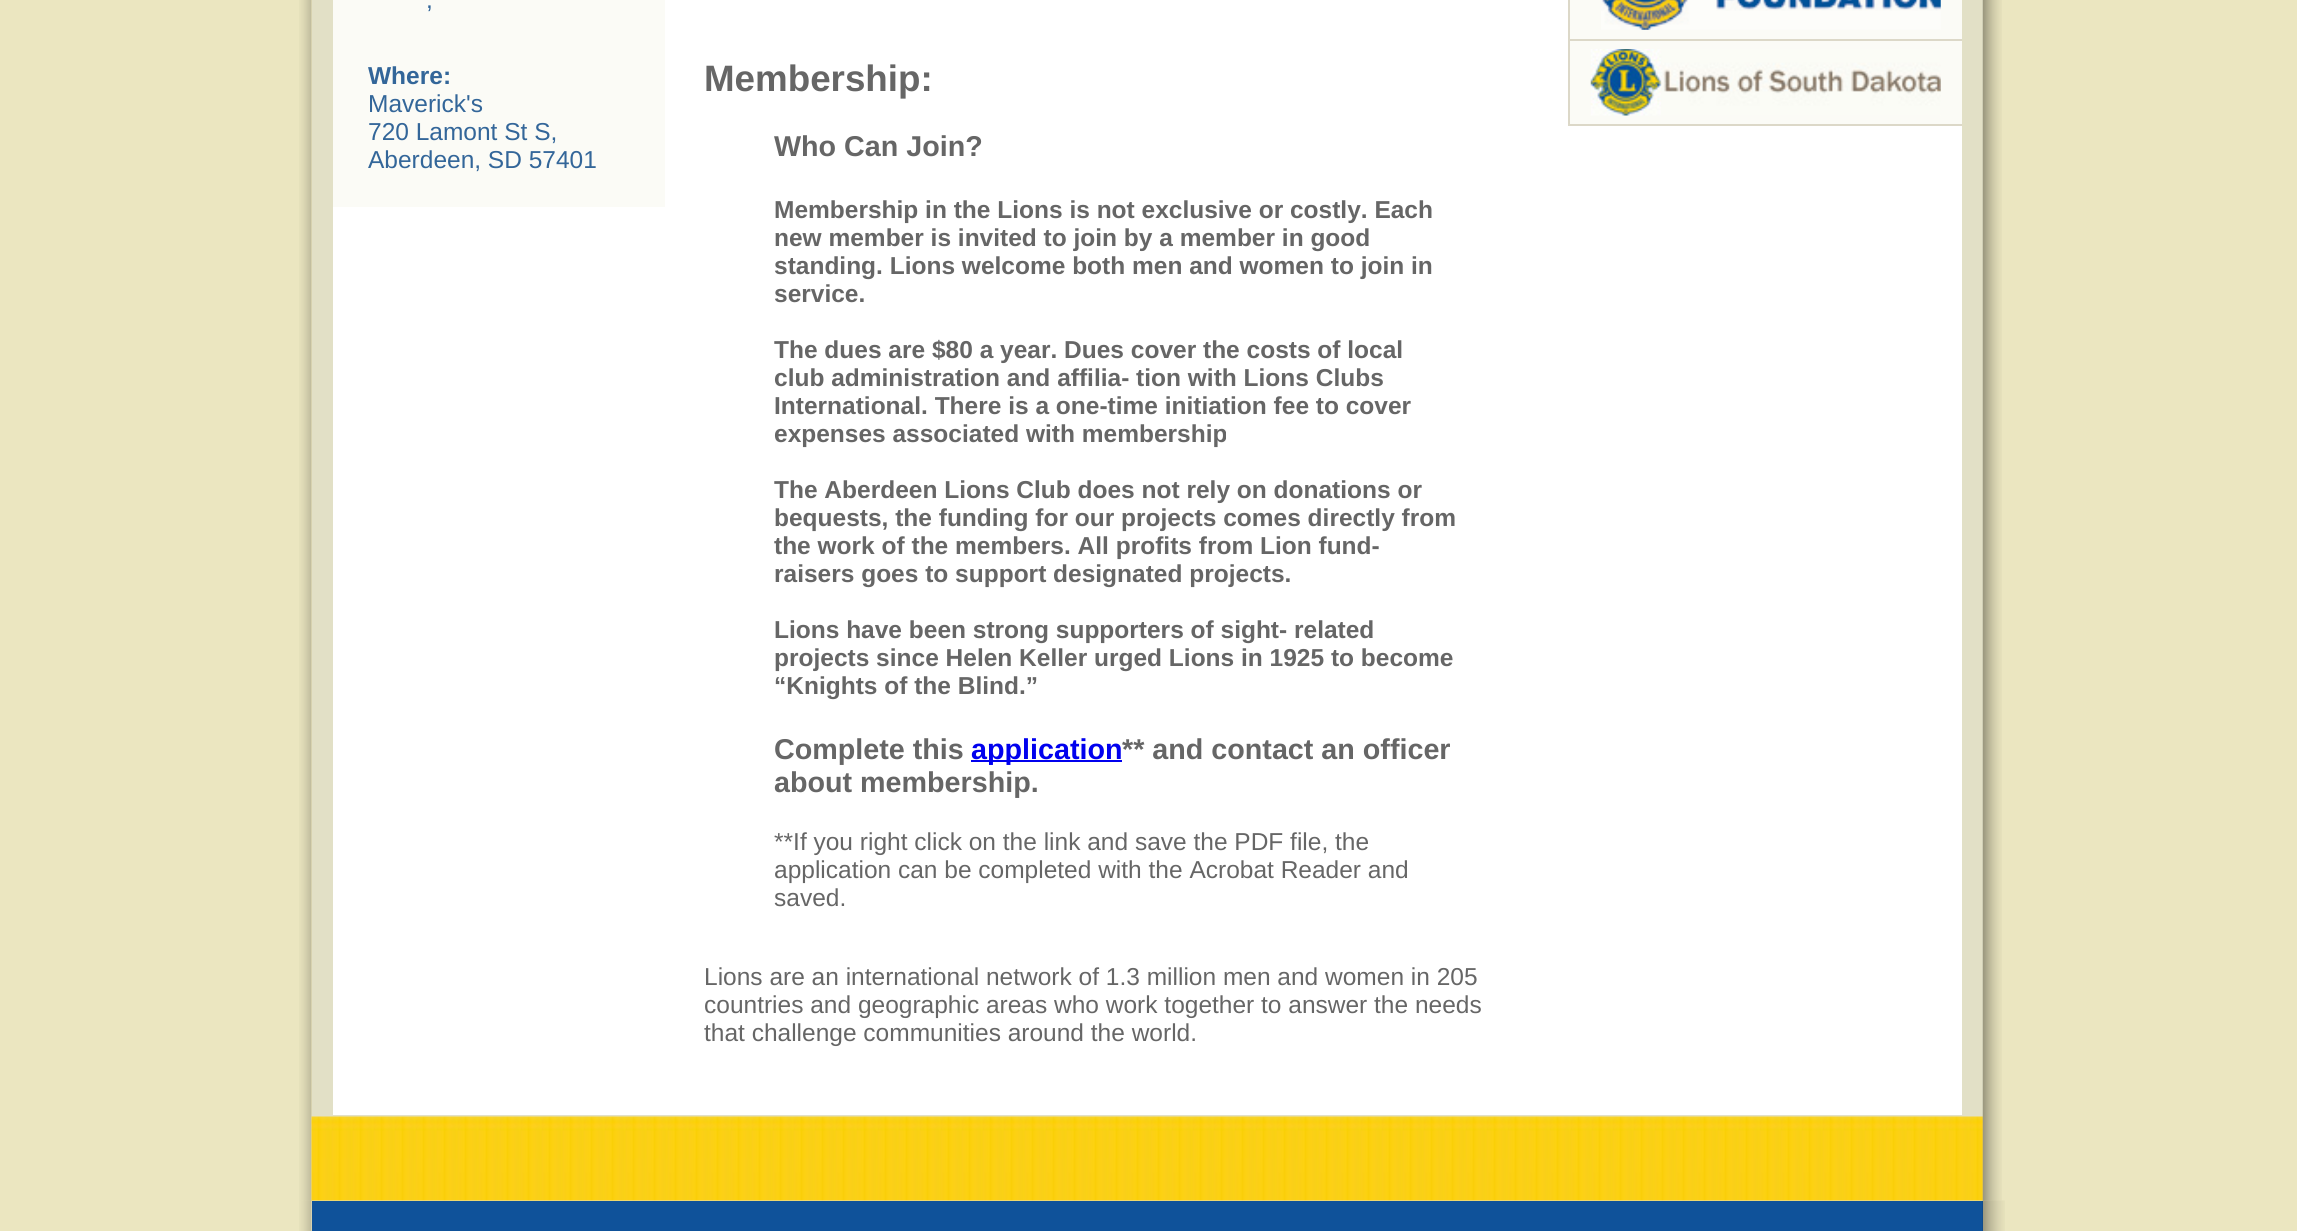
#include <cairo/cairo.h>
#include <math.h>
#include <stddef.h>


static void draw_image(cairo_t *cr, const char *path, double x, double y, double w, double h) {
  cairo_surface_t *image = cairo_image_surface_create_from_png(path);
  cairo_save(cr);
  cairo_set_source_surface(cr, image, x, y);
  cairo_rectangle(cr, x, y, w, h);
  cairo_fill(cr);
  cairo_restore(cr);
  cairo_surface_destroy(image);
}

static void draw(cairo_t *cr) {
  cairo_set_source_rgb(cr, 235 / 255.0, 230 / 255.0, 192 / 255.0);
  cairo_paint(cr);
  draw_image(cr, "images/1.png", 299, 0, 13, 1201);
  cairo_set_source_rgb(cr, 226 / 255.0, 224 / 255.0, 198 / 255.0);
  cairo_rectangle(cr, 312, 0, 1671, 1201);
  cairo_fill(cr);
  draw_image(cr, "images/2.png", 311, 1116, 1672, 85);
  cairo_set_source_rgb(cr, 1, 1, 1);
  cairo_rectangle(cr, 333, 0, 1629, 1115);
  cairo_fill(cr);
  cairo_set_source_rgb(cr, 251 / 255.0, 251 / 255.0, 246 / 255.0);
  cairo_rectangle(cr, 333, 0, 332, 207);
  cairo_fill(cr);
  cairo_set_source_rgb(cr, 0, 0, 238 / 255.0);
  cairo_rectangle(cr, 971, 760, 151, 2);
  cairo_fill(cr);
  cairo_set_source_rgb(cr, 251 / 255.0, 251 / 255.0, 246 / 255.0);
  cairo_rectangle(cr, 1570, 0, 392, 124);
  cairo_fill(cr);
  cairo_set_source_rgb(cr, 220 / 255.0, 216 / 255.0, 200 / 255.0);
  cairo_rectangle(cr, 1568, 0, 2, 39);
  cairo_fill(cr);
  draw_image(cr, "images/3.png", 1601, 0, 340, 30);
  cairo_rectangle(cr, 1568, 39, 394, 2);
  cairo_fill(cr);
  cairo_rectangle(cr, 1568, 40, 2, 84);
  cairo_fill(cr);
  draw_image(cr, "images/4.png", 1590, 49, 351, 67);
  cairo_rectangle(cr, 1568, 124, 394, 2);
  cairo_fill(cr);
  draw_image(cr, "images/5.png", 1982, 0, 20, 1201);
  draw_image(cr, "images/6.png", 299, 1200, 13, 31);
  cairo_set_source_rgb(cr, 15 / 255.0, 82 / 255.0, 154 / 255.0);
  cairo_rectangle(cr, 312, 1201, 1671, 30);
  cairo_fill(cr);
  draw_image(cr, "images/7.png", 1982, 1200, 23, 31);
  cairo_select_font_face(cr, "Liberation Sans", CAIRO_FONT_SLANT_NORMAL, CAIRO_FONT_WEIGHT_NORMAL);
  cairo_set_font_size(cr, 24.5);
  cairo_set_source_rgb(cr, 51 / 255.0, 102 / 255.0, 153 / 255.0);
  cairo_move_to(cr, 426, 8);
  cairo_show_text(cr, ",");
  cairo_select_font_face(cr, "Liberation Sans", CAIRO_FONT_SLANT_NORMAL, CAIRO_FONT_WEIGHT_BOLD);
  cairo_move_to(cr, 368, 84);
  cairo_show_text(cr, "Where:");
  cairo_select_font_face(cr, "Liberation Sans", CAIRO_FONT_SLANT_NORMAL, CAIRO_FONT_WEIGHT_NORMAL);
  cairo_move_to(cr, 368, 112);
  cairo_show_text(cr, "Maverick's");
  cairo_move_to(cr, 368, 140);
  cairo_show_text(cr, "720 Lamont St S,");
  cairo_move_to(cr, 368, 168);
  cairo_show_text(cr, "Aberdeen, SD 57401");
  cairo_select_font_face(cr, "Liberation Sans", CAIRO_FONT_SLANT_NORMAL, CAIRO_FONT_WEIGHT_BOLD);
  cairo_set_font_size(cr, 36.75);
  cairo_set_source_rgb(cr, 102 / 255.0, 102 / 255.0, 102 / 255.0);
  cairo_move_to(cr, 704, 91);
  cairo_show_text(cr, "Membership:");
  cairo_set_font_size(cr, 28.7);
  cairo_move_to(cr, 774, 156);
  cairo_show_text(cr, "Who Can Join?");
  cairo_set_font_size(cr, 24.5);
  cairo_move_to(cr, 774, 218);
  cairo_show_text(cr, "Membership in the Lions is not exclusive or costly. Each");
  cairo_move_to(cr, 774, 246);
  cairo_show_text(cr, "new member is invited to join by a member in good");
  cairo_move_to(cr, 774, 274);
  cairo_show_text(cr, "standing. Lions welcome both men and women to join in");
  cairo_move_to(cr, 774, 302);
  cairo_show_text(cr, "service.");
  cairo_move_to(cr, 774, 358);
  cairo_show_text(cr, "The dues are $80 a year. Dues cover the costs of local");
  cairo_move_to(cr, 774, 386);
  cairo_show_text(cr, "club administration and affilia- tion with Lions Clubs");
  cairo_move_to(cr, 774, 414);
  cairo_show_text(cr, "International. There is a one-time initiation fee to cover");
  cairo_move_to(cr, 774, 442);
  cairo_show_text(cr, "expenses associated with membership");
  cairo_move_to(cr, 774, 498);
  cairo_show_text(cr, "The Aberdeen Lions Club does not rely on donations or");
  cairo_move_to(cr, 774, 526);
  cairo_show_text(cr, "bequests, the funding for our projects comes directly from");
  cairo_move_to(cr, 774, 554);
  cairo_show_text(cr, "the work of the members. All profits from Lion fund-");
  cairo_move_to(cr, 774, 582);
  cairo_show_text(cr, "raisers goes to support designated projects.");
  cairo_move_to(cr, 774, 638);
  cairo_show_text(cr, "Lions have been strong supporters of sight- related");
  cairo_move_to(cr, 774, 666);
  cairo_show_text(cr, "projects since Helen Keller urged Lions in 1925 to become");
  cairo_move_to(cr, 774, 694);
  cairo_show_text(cr, "“Knights of the Blind.”");
  cairo_set_font_size(cr, 28.7);
  cairo_move_to(cr, 774, 759);
  cairo_show_text(cr, "Complete this");
  cairo_set_source_rgb(cr, 0, 0, 238 / 255.0);
  cairo_move_to(cr, 971, 759);
  cairo_show_text(cr, "application");
  cairo_set_source_rgb(cr, 102 / 255.0, 102 / 255.0, 102 / 255.0);
  cairo_move_to(cr, 1122, 759);
  cairo_show_text(cr, "** and contact an officer");
  cairo_move_to(cr, 774, 792);
  cairo_show_text(cr, "about membership.");
  cairo_select_font_face(cr, "Liberation Sans", CAIRO_FONT_SLANT_NORMAL, CAIRO_FONT_WEIGHT_NORMAL);
  cairo_set_font_size(cr, 24.5);
  cairo_move_to(cr, 774, 850);
  cairo_show_text(cr, "**If you right click on the link and save the PDF file, the");
  cairo_move_to(cr, 774, 878);
  cairo_show_text(cr, "application can be completed with the Acrobat Reader and");
  cairo_move_to(cr, 774, 906);
  cairo_show_text(cr, "saved.");
  cairo_move_to(cr, 704, 985);
  cairo_show_text(cr, "Lions are an international network of 1.3 million men and women in 205");
  cairo_move_to(cr, 704, 1013);
  cairo_show_text(cr, "countries and geographic areas who work together to answer the needs");
  cairo_move_to(cr, 704, 1041);
  cairo_show_text(cr, "that challenge communities around the world.");
}

int main(void) {
  cairo_surface_t *surface = cairo_image_surface_create(CAIRO_FORMAT_RGB24, 2297, 1231);
  cairo_t *cr = cairo_create(surface);
  cairo_font_options_t *options = cairo_font_options_create();
  cairo_font_options_set_hint_metrics(options, CAIRO_HINT_METRICS_OFF);
  cairo_font_options_set_hint_style(options, CAIRO_HINT_STYLE_NONE);
  cairo_set_font_options(cr, options);
  cairo_set_miter_limit(cr, 4);
  draw(cr);
  cairo_surface_write_to_png(surface, "out.png");
  cairo_font_options_destroy(options);
  cairo_destroy(cr);
  cairo_surface_destroy(surface);
  return 0;
}
